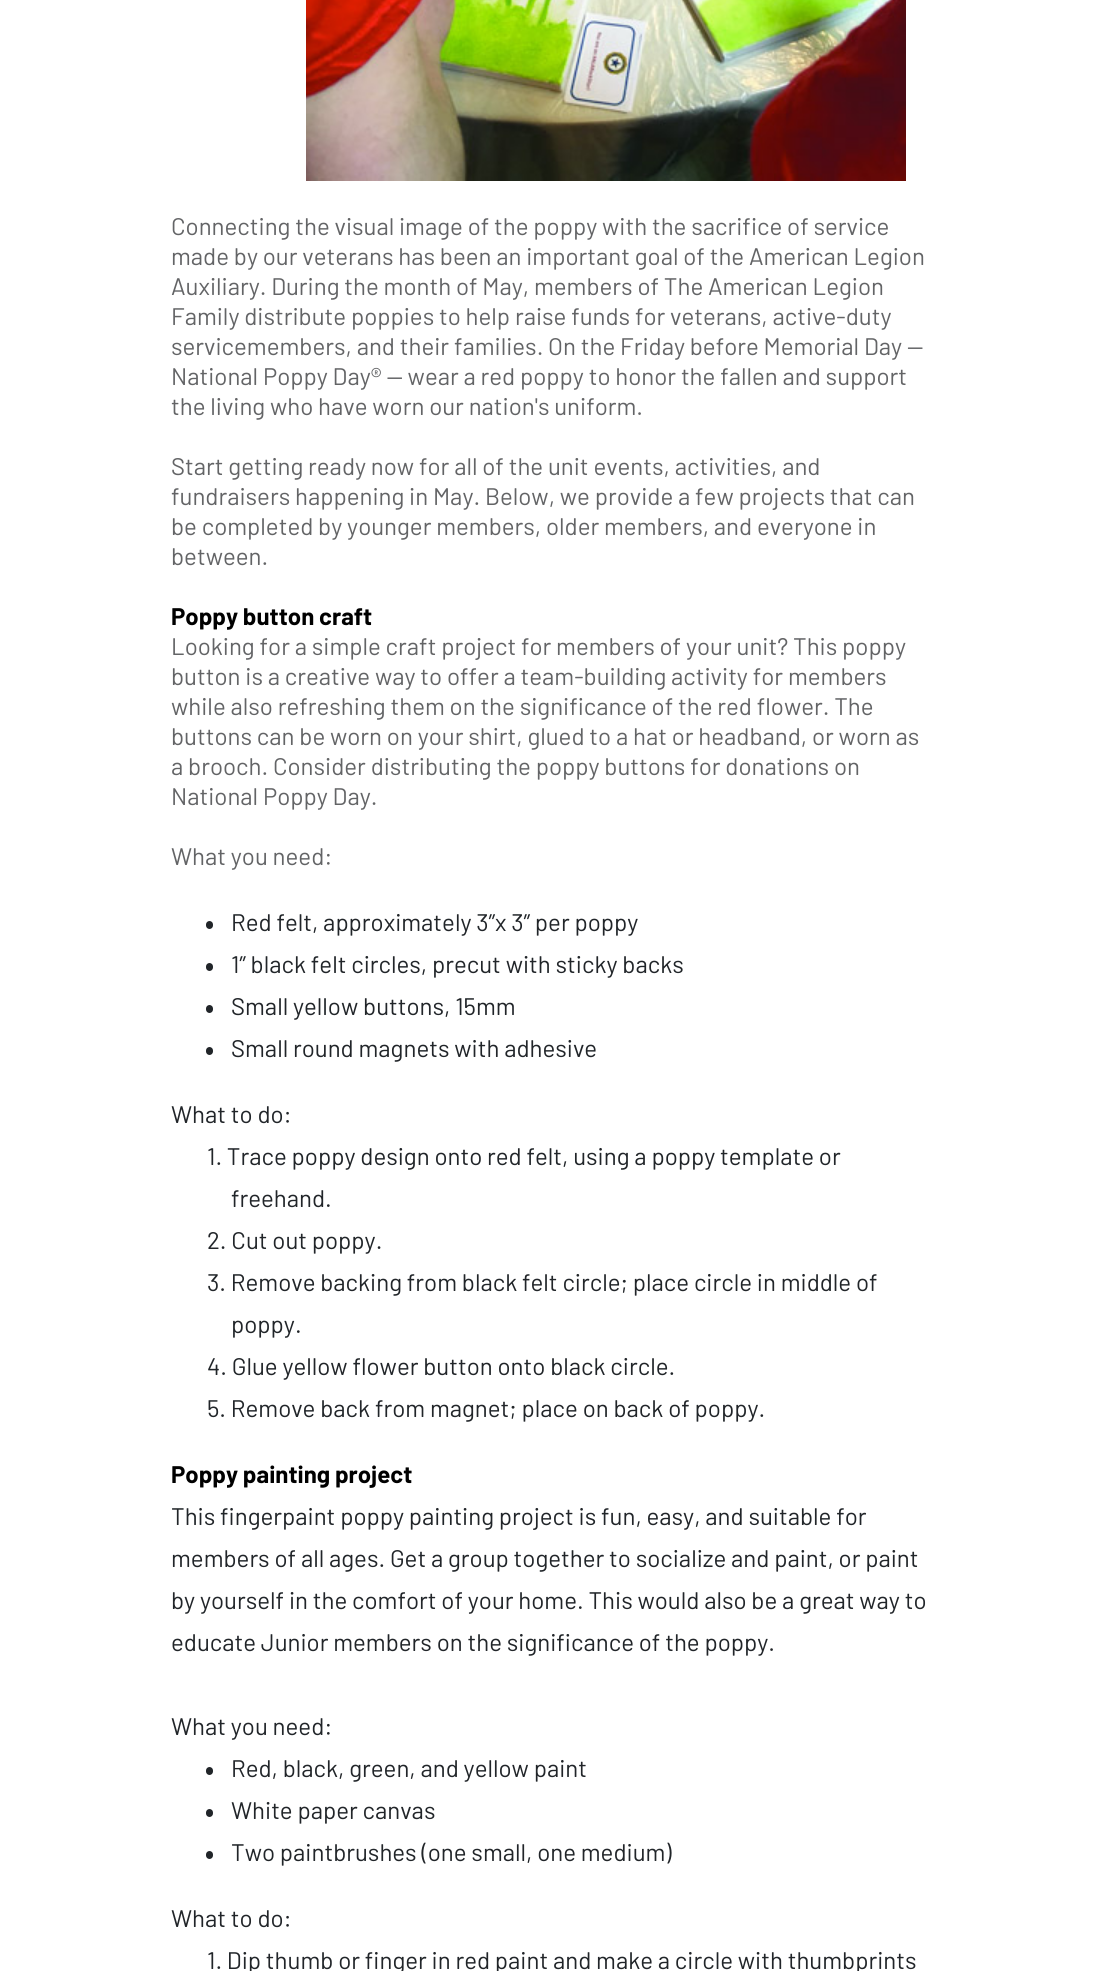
#include <cairo/cairo.h>
#include <math.h>
#include <stddef.h>


static void rounded_rect(cairo_t *cr, double x, double y, double w, double h, double r) {
  cairo_new_sub_path(cr);
  cairo_arc(cr, x + w - r, y + h - r, r, 0, M_PI / 2);
  cairo_arc(cr, x + r, y + h - r, r, M_PI / 2, M_PI);
  cairo_arc(cr, x + r, y + r, r, M_PI, 1.5 * M_PI);
  cairo_arc(cr, x + w - r, y + r, r, 1.5 * M_PI, 2 * M_PI);
  cairo_close_path(cr);
}

static void draw_image(cairo_t *cr, const char *path, double x, double y, double w, double h) {
  cairo_surface_t *image = cairo_image_surface_create_from_png(path);
  cairo_save(cr);
  cairo_set_source_surface(cr, image, x, y);
  cairo_rectangle(cr, x, y, w, h);
  cairo_fill(cr);
  cairo_restore(cr);
  cairo_surface_destroy(image);
}

static void draw(cairo_t *cr) {
  cairo_set_source_rgb(cr, 1, 1, 1);
  cairo_paint(cr);
  draw_image(cr, "images/1.png", 306, 0, 600, 181);
  cairo_set_source_rgb(cr, 33 / 255.0, 37 / 255.0, 41 / 255.0);
  rounded_rect(cr, 206, 921, 7, 8, 3.5);
  cairo_fill(cr);
  rounded_rect(cr, 206, 963, 7, 8, 3.5);
  cairo_fill(cr);
  rounded_rect(cr, 206, 1005, 7, 8, 3.5);
  cairo_fill(cr);
  rounded_rect(cr, 206, 1047, 7, 8, 3.5);
  cairo_fill(cr);
  rounded_rect(cr, 206, 1767, 7, 8, 3.5);
  cairo_fill(cr);
  rounded_rect(cr, 206, 1809, 7, 8, 3.5);
  cairo_fill(cr);
  rounded_rect(cr, 206, 1851, 7, 8, 3.5);
  cairo_fill(cr);
  cairo_select_font_face(cr, "Barlow", CAIRO_FONT_SLANT_NORMAL, CAIRO_FONT_WEIGHT_NORMAL);
  cairo_set_font_size(cr, 24);
  cairo_set_source_rgb(cr, 99 / 255.0, 100 / 255.0, 102 / 255.0);
  cairo_move_to(cr, 171, 235);
  cairo_show_text(cr, "Connecting the visual image of the poppy with the sacrifice of service");
  cairo_move_to(cr, 171, 265);
  cairo_show_text(cr, "made by our veterans has been an important goal of the American Legion");
  cairo_move_to(cr, 171, 295);
  cairo_show_text(cr, "Auxiliary. During the month of May, members of The American Legion");
  cairo_move_to(cr, 171, 325);
  cairo_show_text(cr, "Family distribute poppies to help raise funds for veterans, active-duty");
  cairo_move_to(cr, 171, 355);
  cairo_show_text(cr, "servicemembers, and their families. On the Friday before Memorial Day —");
  cairo_move_to(cr, 171, 385);
  cairo_show_text(cr, "National Poppy Day® — wear a red poppy to honor the fallen and support");
  cairo_move_to(cr, 171, 415);
  cairo_show_text(cr, "the living who have worn our nation's uniform.");
  cairo_move_to(cr, 171, 475);
  cairo_show_text(cr, "Start getting ready now for all of the unit events, activities, and");
  cairo_move_to(cr, 171, 505);
  cairo_show_text(cr, "fundraisers happening in May. Below, we provide a few projects that can");
  cairo_move_to(cr, 171, 535);
  cairo_show_text(cr, "be completed by younger members, older members, and everyone in");
  cairo_move_to(cr, 171, 565);
  cairo_show_text(cr, "between.");
  cairo_select_font_face(cr, "Barlow", CAIRO_FONT_SLANT_NORMAL, CAIRO_FONT_WEIGHT_BOLD);
  cairo_set_source_rgb(cr, 0, 0, 0);
  cairo_move_to(cr, 171, 625);
  cairo_show_text(cr, "Poppy button craft");
  cairo_select_font_face(cr, "Barlow", CAIRO_FONT_SLANT_NORMAL, CAIRO_FONT_WEIGHT_NORMAL);
  cairo_set_source_rgb(cr, 99 / 255.0, 100 / 255.0, 102 / 255.0);
  cairo_move_to(cr, 171, 655);
  cairo_show_text(cr, "Looking for a simple craft project for members of your unit? This poppy");
  cairo_move_to(cr, 171, 685);
  cairo_show_text(cr, "button is a creative way to offer a team-building activity for members");
  cairo_move_to(cr, 171, 715);
  cairo_show_text(cr, "while also refreshing them on the significance of the red flower. The");
  cairo_move_to(cr, 171, 745);
  cairo_show_text(cr, "buttons can be worn on your shirt, glued to a hat or headband, or worn as");
  cairo_move_to(cr, 171, 775);
  cairo_show_text(cr, "a brooch. Consider distributing the poppy buttons for donations on");
  cairo_move_to(cr, 171, 805);
  cairo_show_text(cr, "National Poppy Day.");
  cairo_move_to(cr, 171, 865);
  cairo_show_text(cr, "What you need:");
  cairo_set_source_rgb(cr, 33 / 255.0, 37 / 255.0, 41 / 255.0);
  cairo_move_to(cr, 231, 931);
  cairo_show_text(cr, "Red felt, approximately 3”x 3” per poppy");
  cairo_move_to(cr, 231, 973);
  cairo_show_text(cr, "1” black felt circles, precut with sticky backs");
  cairo_move_to(cr, 231, 1015);
  cairo_show_text(cr, "Small yellow buttons, 15mm");
  cairo_move_to(cr, 231, 1057);
  cairo_show_text(cr, "Small round magnets with adhesive");
  cairo_move_to(cr, 171, 1123);
  cairo_show_text(cr, "What to do:");
  cairo_move_to(cr, 207, 1165);
  cairo_show_text(cr, "1. Trace poppy design onto red felt, using a poppy template or");
  cairo_move_to(cr, 231, 1207);
  cairo_show_text(cr, "freehand.");
  cairo_move_to(cr, 207, 1249);
  cairo_show_text(cr, "2. Cut out poppy.");
  cairo_move_to(cr, 207, 1291);
  cairo_show_text(cr, "3. Remove backing from black felt circle; place circle in middle of");
  cairo_move_to(cr, 231, 1333);
  cairo_show_text(cr, "poppy.");
  cairo_move_to(cr, 207, 1375);
  cairo_show_text(cr, "4. Glue yellow flower button onto black circle.");
  cairo_move_to(cr, 207, 1417);
  cairo_show_text(cr, "5. Remove back from magnet; place on back of poppy.");
  cairo_select_font_face(cr, "Barlow", CAIRO_FONT_SLANT_NORMAL, CAIRO_FONT_WEIGHT_BOLD);
  cairo_set_source_rgb(cr, 0, 0, 0);
  cairo_move_to(cr, 171, 1483);
  cairo_show_text(cr, "Poppy painting project");
  cairo_select_font_face(cr, "Barlow", CAIRO_FONT_SLANT_NORMAL, CAIRO_FONT_WEIGHT_NORMAL);
  cairo_set_source_rgb(cr, 33 / 255.0, 37 / 255.0, 41 / 255.0);
  cairo_move_to(cr, 171, 1525);
  cairo_show_text(cr, "This fingerpaint poppy painting project is fun, easy, and suitable for");
  cairo_move_to(cr, 171, 1567);
  cairo_show_text(cr, "members of all ages. Get a group together to socialize and paint, or paint");
  cairo_move_to(cr, 171, 1609);
  cairo_show_text(cr, "by yourself in the comfort of your home. This would also be a great way to");
  cairo_move_to(cr, 171, 1651);
  cairo_show_text(cr, "educate Junior members on the significance of the poppy.");
  cairo_move_to(cr, 171, 1735);
  cairo_show_text(cr, "What you need:");
  cairo_move_to(cr, 231, 1777);
  cairo_show_text(cr, "Red, black, green, and yellow paint");
  cairo_move_to(cr, 231, 1819);
  cairo_show_text(cr, "White paper canvas");
  cairo_move_to(cr, 231, 1861);
  cairo_show_text(cr, "Two paintbrushes (one small, one medium)");
  cairo_move_to(cr, 171, 1927);
  cairo_show_text(cr, "What to do:");
  cairo_move_to(cr, 207, 1969);
  cairo_show_text(cr, "1. Dip thumb or finger in red paint and make a circle with thumbprints");
}

int main(void) {
  cairo_surface_t *surface = cairo_image_surface_create(CAIRO_FORMAT_RGB24, 1107, 1971);
  cairo_t *cr = cairo_create(surface);
  cairo_font_options_t *options = cairo_font_options_create();
  cairo_font_options_set_hint_metrics(options, CAIRO_HINT_METRICS_OFF);
  cairo_font_options_set_hint_style(options, CAIRO_HINT_STYLE_NONE);
  cairo_set_font_options(cr, options);
  cairo_set_miter_limit(cr, 4);
  draw(cr);
  cairo_surface_write_to_png(surface, "out.png");
  cairo_font_options_destroy(options);
  cairo_destroy(cr);
  cairo_surface_destroy(surface);
  return 0;
}
